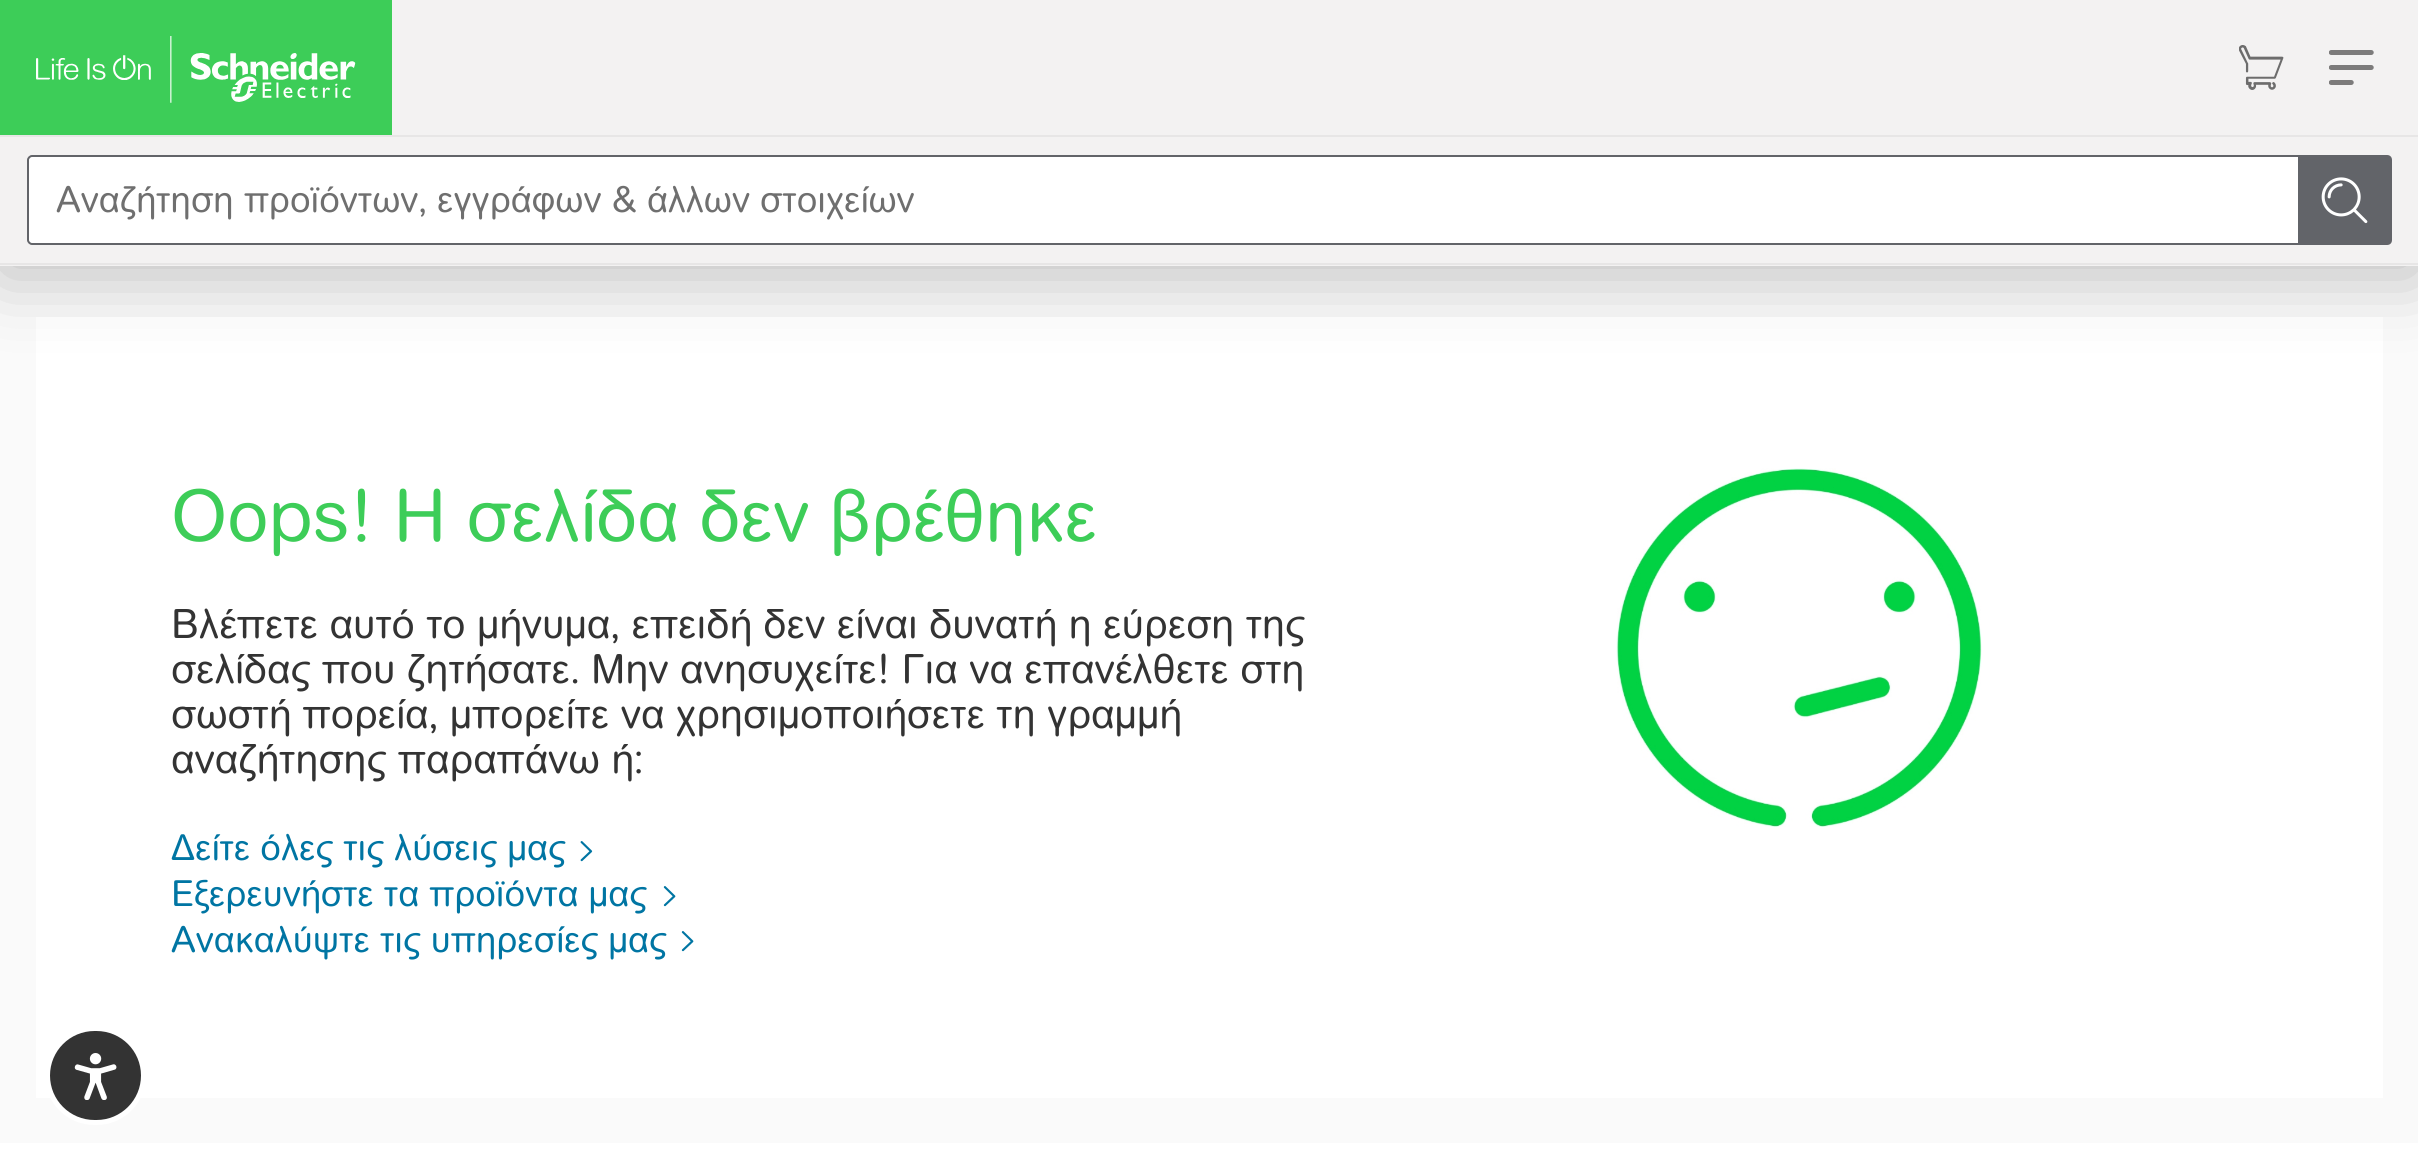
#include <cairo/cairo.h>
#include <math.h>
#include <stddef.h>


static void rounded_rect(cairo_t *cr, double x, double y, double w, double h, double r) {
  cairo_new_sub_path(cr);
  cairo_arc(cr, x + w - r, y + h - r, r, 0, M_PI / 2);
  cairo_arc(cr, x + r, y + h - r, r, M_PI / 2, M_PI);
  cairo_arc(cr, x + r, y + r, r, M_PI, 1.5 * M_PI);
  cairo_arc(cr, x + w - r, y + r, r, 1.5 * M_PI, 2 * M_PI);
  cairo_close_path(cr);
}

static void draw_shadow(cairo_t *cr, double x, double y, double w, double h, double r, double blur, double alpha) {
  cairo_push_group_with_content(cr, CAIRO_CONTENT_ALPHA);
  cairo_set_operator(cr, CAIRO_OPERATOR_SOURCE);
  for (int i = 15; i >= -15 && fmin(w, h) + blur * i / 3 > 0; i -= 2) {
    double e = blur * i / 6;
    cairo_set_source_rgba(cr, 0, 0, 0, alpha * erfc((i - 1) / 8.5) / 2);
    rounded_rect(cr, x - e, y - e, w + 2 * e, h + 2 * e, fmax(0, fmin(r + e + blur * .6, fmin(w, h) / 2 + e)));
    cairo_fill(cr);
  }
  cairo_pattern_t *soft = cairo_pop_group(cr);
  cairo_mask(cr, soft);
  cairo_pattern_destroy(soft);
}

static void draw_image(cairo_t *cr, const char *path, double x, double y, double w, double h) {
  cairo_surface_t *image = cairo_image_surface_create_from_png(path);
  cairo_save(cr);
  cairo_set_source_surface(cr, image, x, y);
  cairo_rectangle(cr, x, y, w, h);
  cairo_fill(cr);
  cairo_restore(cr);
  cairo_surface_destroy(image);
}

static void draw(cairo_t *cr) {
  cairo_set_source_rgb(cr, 250 / 255.0, 250 / 255.0, 250 / 255.0);
  cairo_paint(cr);
  cairo_set_source_rgb(cr, 1, 1, 1);
  cairo_rectangle(cr, 36, 317, 2347, 781);
  cairo_fill(cr);
  cairo_set_source_rgb(cr, 0, 0, 0);
  draw_shadow(cr, 0, 9, 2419, 266, 0, 36, 0.25);
  cairo_set_source_rgb(cr, 243 / 255.0, 242 / 255.0, 242 / 255.0);
  cairo_rectangle(cr, 0, 0, 2418, 266);
  cairo_fill(cr);
  cairo_set_source_rgb(cr, 231 / 255.0, 230 / 255.0, 230 / 255.0);
  cairo_rectangle(cr, 0, 263, 2418, 2);
  cairo_fill(cr);
  cairo_set_source_rgb(cr, 61 / 255.0, 205 / 255.0, 88 / 255.0);
  cairo_rectangle(cr, 0, 0, 392, 135);
  cairo_fill(cr);
  draw_image(cr, "images/1.png", 36, 36, 320, 67);
  draw_image(cr, "images/2.png", 2239, 45, 45, 45);
  draw_image(cr, "images/3.png", 2329, 50, 45, 35);
  cairo_set_source_rgb(cr, 231 / 255.0, 230 / 255.0, 230 / 255.0);
  cairo_rectangle(cr, 0, 135, 2418, 2);
  cairo_fill(cr);
  cairo_set_source_rgb(cr, 1, 1, 1);
  cairo_new_path(cr);
  cairo_move_to(cr, 32, 156);
  cairo_line_to(cr, 2299, 156);
  cairo_line_to(cr, 2299, 244);
  cairo_line_to(cr, 32, 244);
  cairo_curve_to(cr, 30, 244, 28, 242, 28, 240);
  cairo_line_to(cr, 28, 160);
  cairo_curve_to(cr, 28, 158, 30, 156, 32, 156);
  cairo_close_path(cr);
  cairo_fill_preserve(cr);
  cairo_set_source_rgb(cr, 98 / 255.0, 100 / 255.0, 105 / 255.0);
  cairo_stroke(cr);
  cairo_new_path(cr);
  cairo_move_to(cr, 2300, 155);
  cairo_line_to(cr, 2387, 155);
  cairo_curve_to(cr, 2390, 155, 2392, 157, 2392, 160);
  cairo_line_to(cr, 2392, 240);
  cairo_curve_to(cr, 2392, 243, 2390, 245, 2387, 245);
  cairo_line_to(cr, 2300, 245);
  cairo_close_path(cr);
  cairo_fill(cr);
  draw_image(cr, "images/4.png", 2321, 177, 47, 47);
  draw_image(cr, "images/5.png", 580, 841, 13, 21);
  draw_image(cr, "images/6.png", 663, 886, 13, 21);
  draw_image(cr, "images/6.png", 681, 931, 13, 21);
  draw_image(cr, "images/7.png", 1616, 468, 366, 359);
  cairo_set_source_rgb(cr, 51 / 255.0, 51 / 255.0, 51 / 255.0);
  rounded_rect(cr, 47.5, 1028.5, 96, 94, 47);
  cairo_fill_preserve(cr);
  cairo_set_source_rgb(cr, 1, 1, 1);
  cairo_set_line_width(cr, 5);
  cairo_stroke(cr);
  draw_image(cr, "images/8.png", 74, 1053, 43, 47);
  cairo_rectangle(cr, 0, 1143, 2418, 27);
  cairo_fill(cr);
  cairo_select_font_face(cr, "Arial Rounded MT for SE", CAIRO_FONT_SLANT_NORMAL, CAIRO_FONT_WEIGHT_NORMAL);
  cairo_set_font_size(cr, 36);
  cairo_set_source_rgb(cr, 111 / 255.0, 111 / 255.0, 111 / 255.0);
  cairo_move_to(cr, 56, 212);
  cairo_show_text(cr, "Αναζήτηση προϊόντων, εγγράφων & άλλων στοιχείων");
  cairo_set_font_size(cr, 72);
  cairo_set_source_rgb(cr, 61 / 255.0, 205 / 255.0, 88 / 255.0);
  cairo_move_to(cr, 171, 541);
  cairo_show_text(cr, "Oops! Η σελίδα δεν βρέθηκε");
  cairo_set_font_size(cr, 40.5);
  cairo_set_source_rgb(cr, 51 / 255.0, 51 / 255.0, 51 / 255.0);
  cairo_move_to(cr, 171, 638);
  cairo_show_text(cr, "Βλέπετε αυτό το μήνυμα, επειδή δεν είναι δυνατή η εύρεση της");
  cairo_move_to(cr, 171, 683);
  cairo_show_text(cr, "σελίδας που ζητήσατε. Μην ανησυχείτε! Για να επανέλθετε στη");
  cairo_move_to(cr, 171, 728);
  cairo_show_text(cr, "σωστή πορεία, μπορείτε να χρησιμοποιήσετε τη γραμμή");
  cairo_move_to(cr, 171, 773);
  cairo_show_text(cr, "αναζήτησης παραπάνω ή:");
  cairo_set_font_size(cr, 36);
  cairo_set_source_rgb(cr, 0, 117 / 255.0, 163 / 255.0);
  cairo_move_to(cr, 171, 860);
  cairo_show_text(cr, "Δείτε όλες τις λύσεις μας");
  cairo_move_to(cr, 171, 906);
  cairo_show_text(cr, "Εξερευνήστε τα προϊόντα μας");
  cairo_move_to(cr, 171, 952);
  cairo_show_text(cr, "Ανακαλύψτε τις υπηρεσίες μας");
}

int main(void) {
  cairo_surface_t *surface = cairo_image_surface_create(CAIRO_FORMAT_RGB24, 2418, 1170);
  cairo_t *cr = cairo_create(surface);
  cairo_font_options_t *options = cairo_font_options_create();
  cairo_font_options_set_hint_metrics(options, CAIRO_HINT_METRICS_OFF);
  cairo_font_options_set_hint_style(options, CAIRO_HINT_STYLE_NONE);
  cairo_set_font_options(cr, options);
  cairo_set_miter_limit(cr, 4);
  draw(cr);
  cairo_surface_write_to_png(surface, "out.png");
  cairo_font_options_destroy(options);
  cairo_destroy(cr);
  cairo_surface_destroy(surface);
  return 0;
}
